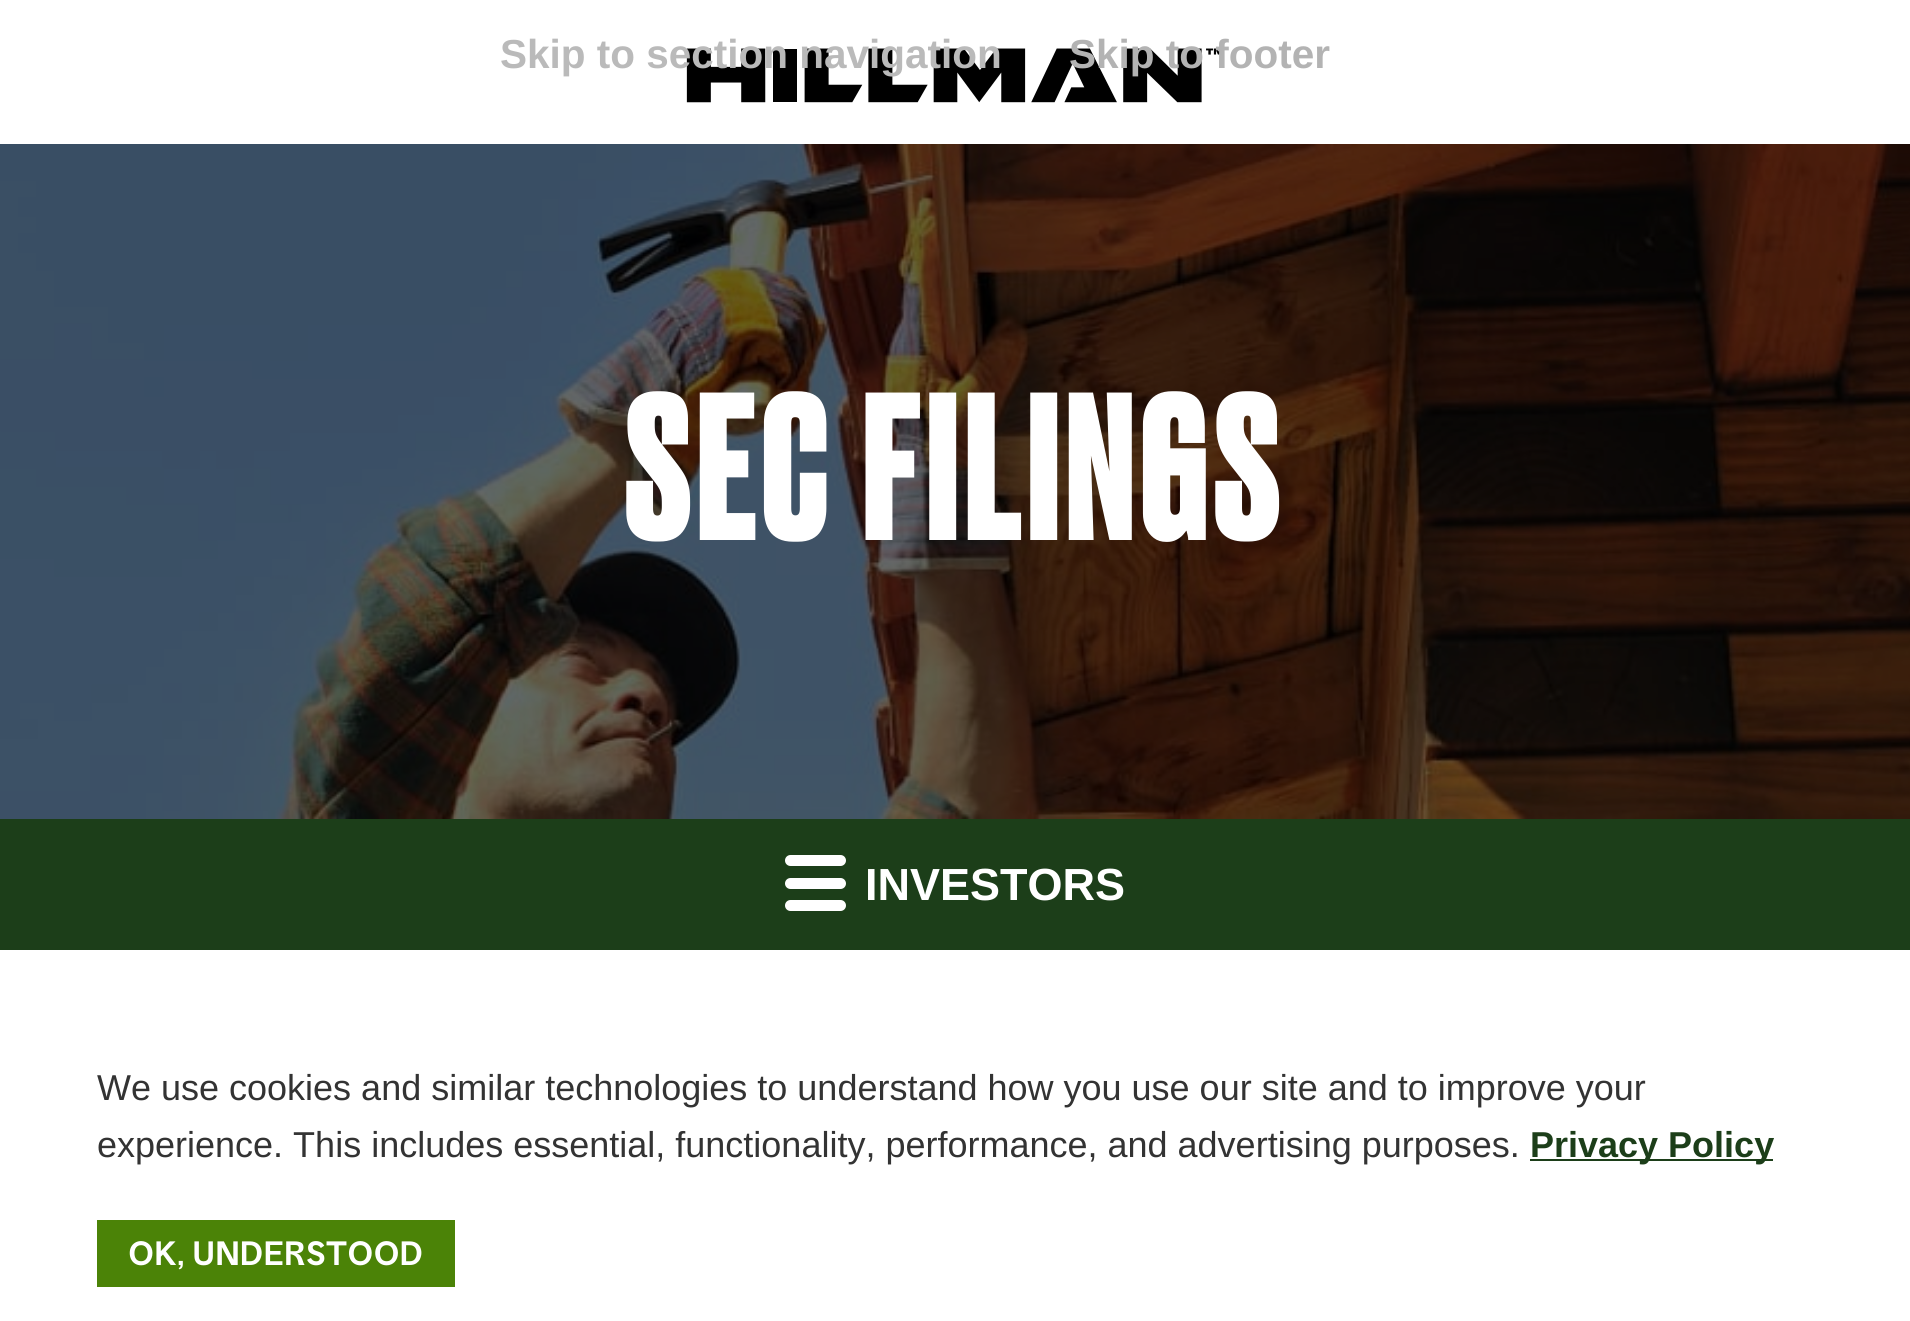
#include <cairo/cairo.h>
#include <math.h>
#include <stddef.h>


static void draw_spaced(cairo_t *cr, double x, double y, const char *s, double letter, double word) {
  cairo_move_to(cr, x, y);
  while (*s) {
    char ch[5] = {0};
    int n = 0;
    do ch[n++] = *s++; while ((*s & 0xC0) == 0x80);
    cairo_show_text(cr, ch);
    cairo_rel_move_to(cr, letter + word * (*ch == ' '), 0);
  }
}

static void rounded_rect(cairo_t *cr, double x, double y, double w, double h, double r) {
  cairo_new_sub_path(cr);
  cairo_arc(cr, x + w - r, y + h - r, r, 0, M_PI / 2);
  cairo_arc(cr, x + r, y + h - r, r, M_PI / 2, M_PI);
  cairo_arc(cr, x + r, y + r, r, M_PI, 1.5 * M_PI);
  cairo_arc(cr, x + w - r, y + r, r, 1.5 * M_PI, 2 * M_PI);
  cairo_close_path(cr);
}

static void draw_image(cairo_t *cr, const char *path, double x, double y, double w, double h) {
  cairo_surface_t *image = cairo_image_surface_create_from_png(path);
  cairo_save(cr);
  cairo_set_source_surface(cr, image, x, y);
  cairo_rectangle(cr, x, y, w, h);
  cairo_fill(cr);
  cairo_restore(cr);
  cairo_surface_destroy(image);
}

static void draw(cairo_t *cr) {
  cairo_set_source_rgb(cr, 1, 1, 1);
  cairo_paint(cr);
  draw_image(cr, "images/1.png", 686, 48, 538, 55);
  draw_image(cr, "images/2.png", 0, 144, 1910, 675);
  cairo_set_source_rgb(cr, 28 / 255.0, 62 / 255.0, 25 / 255.0);
  cairo_rectangle(cr, 0, 819, 1910, 131);
  cairo_fill(cr);
  cairo_set_source_rgb(cr, 1, 1, 1);
  rounded_rect(cr, 785, 855, 61, 11, 5.5);
  cairo_fill(cr);
  rounded_rect(cr, 785, 878, 61, 11, 5.5);
  cairo_fill(cr);
  rounded_rect(cr, 785, 900, 61, 11, 5.5);
  cairo_fill(cr);
  cairo_set_source_rgb(cr, 28 / 255.0, 62 / 255.0, 25 / 255.0);
  cairo_rectangle(cr, 1530, 1159, 243, 2);
  cairo_fill(cr);
  cairo_set_source_rgb(cr, 75 / 255.0, 131 / 255.0, 7 / 255.0);
  cairo_rectangle(cr, 97, 1220, 358, 67);
  cairo_fill(cr);
  cairo_select_font_face(cr, "Liberation Sans", CAIRO_FONT_SLANT_NORMAL, CAIRO_FONT_WEIGHT_BOLD);
  cairo_set_font_size(cr, 40.5);
  cairo_set_source_rgb(cr, 186 / 255.0, 186 / 255.0, 186 / 255.0);
  cairo_move_to(cr, 500, 68);
  cairo_show_text(cr, "Skip to section navigation");
  cairo_set_source_rgb(cr, 179 / 255.0, 179 / 255.0, 179 / 255.0);
  cairo_move_to(cr, 1069, 68);
  cairo_show_text(cr, "Skip to footer");
  cairo_select_font_face(cr, "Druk", CAIRO_FONT_SLANT_NORMAL, CAIRO_FONT_WEIGHT_BOLD);
  cairo_set_font_size(cr, 191);
  cairo_set_source_rgb(cr, 1, 1, 1);
  draw_spaced(cr, 624, 540, "SEC FILINGS", 9, 0);
  cairo_select_font_face(cr, "Liberation Sans", CAIRO_FONT_SLANT_NORMAL, CAIRO_FONT_WEIGHT_BOLD);
  cairo_set_font_size(cr, 45);
  cairo_move_to(cr, 865, 900);
  cairo_show_text(cr, "INVESTORS");
  cairo_select_font_face(cr, "Liberation Sans", CAIRO_FONT_SLANT_NORMAL, CAIRO_FONT_WEIGHT_NORMAL);
  cairo_set_font_size(cr, 36);
  cairo_set_source_rgb(cr, 51 / 255.0, 51 / 255.0, 51 / 255.0);
  cairo_move_to(cr, 97, 1100);
  cairo_show_text(cr, "We use cookies and similar technologies to understand how you use our site and to improve your");
  cairo_move_to(cr, 97, 1157);
  cairo_show_text(cr, "experience. This includes essential, functionality, performance, and advertising purposes.");
  cairo_select_font_face(cr, "Liberation Sans", CAIRO_FONT_SLANT_NORMAL, CAIRO_FONT_WEIGHT_BOLD);
  cairo_set_source_rgb(cr, 28 / 255.0, 62 / 255.0, 25 / 255.0);
  cairo_move_to(cr, 1530, 1157);
  cairo_show_text(cr, "Privacy Policy");
  cairo_select_font_face(cr, "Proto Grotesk", CAIRO_FONT_SLANT_NORMAL, CAIRO_FONT_WEIGHT_NORMAL);
  cairo_set_font_size(cr, 31.5);
  cairo_set_source_rgb(cr, 1, 1, 1);
  cairo_move_to(cr, 128, 1265);
  cairo_show_text(cr, "OK, UNDERSTOOD");
}

int main(void) {
  cairo_surface_t *surface = cairo_image_surface_create(CAIRO_FORMAT_RGB24, 1910, 1321);
  cairo_t *cr = cairo_create(surface);
  cairo_font_options_t *options = cairo_font_options_create();
  cairo_font_options_set_hint_metrics(options, CAIRO_HINT_METRICS_OFF);
  cairo_font_options_set_hint_style(options, CAIRO_HINT_STYLE_NONE);
  cairo_set_font_options(cr, options);
  cairo_set_miter_limit(cr, 4);
  draw(cr);
  cairo_surface_write_to_png(surface, "out.png");
  cairo_font_options_destroy(options);
  cairo_destroy(cr);
  cairo_surface_destroy(surface);
  return 0;
}
